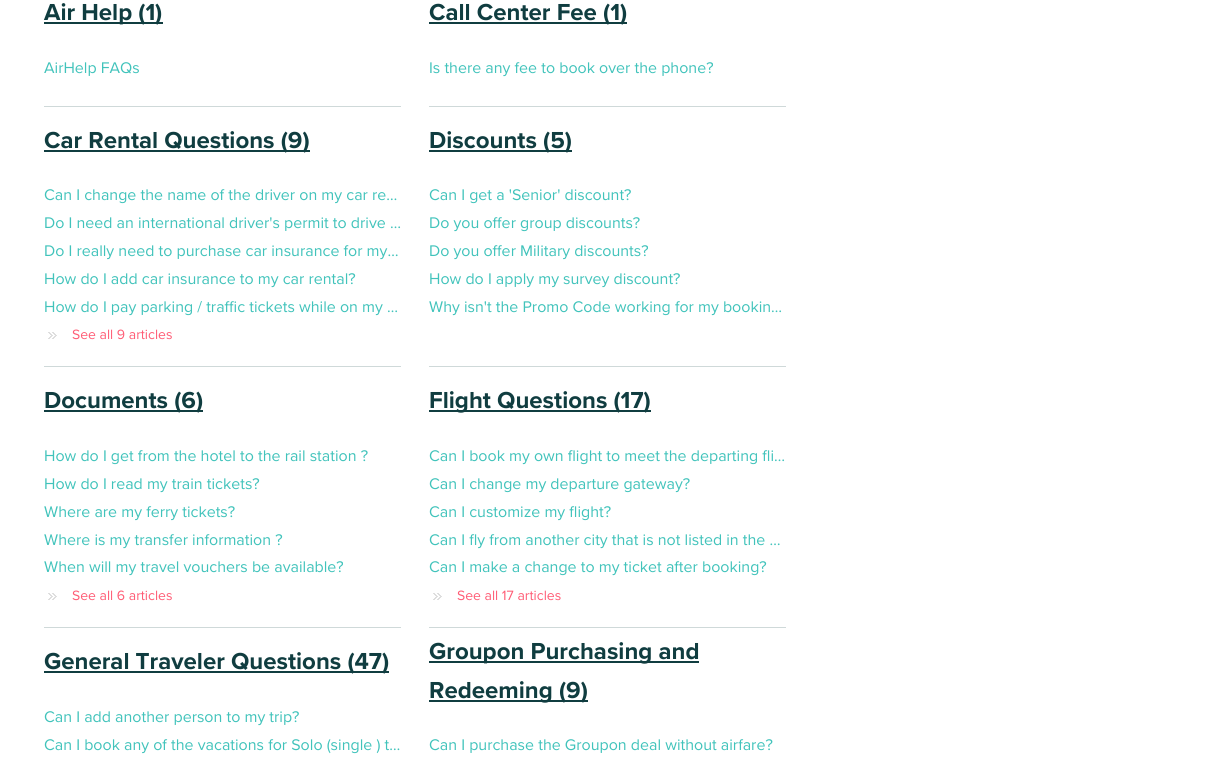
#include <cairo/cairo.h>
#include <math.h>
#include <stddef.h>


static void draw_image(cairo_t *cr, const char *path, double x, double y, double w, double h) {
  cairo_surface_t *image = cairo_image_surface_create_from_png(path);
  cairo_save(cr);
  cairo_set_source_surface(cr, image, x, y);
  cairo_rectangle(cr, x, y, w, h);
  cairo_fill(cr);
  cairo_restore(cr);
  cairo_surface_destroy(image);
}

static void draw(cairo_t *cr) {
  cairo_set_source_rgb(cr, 1, 1, 1);
  cairo_paint(cr);
  cairo_set_source_rgb(cr, 16 / 255.0, 61 / 255.0, 64 / 255.0);
  cairo_rectangle(cr, 44, 22, 101, 2);
  cairo_fill(cr);
  cairo_rectangle(cr, 145, 22, 18, 2);
  cairo_fill(cr);
  cairo_rectangle(cr, 429, 22, 198, 2);
  cairo_fill(cr);
  cairo_set_source_rgb(cr, 207 / 255.0, 217 / 255.0, 217 / 255.0);
  cairo_rectangle(cr, 44, 106, 357, 1);
  cairo_fill(cr);
  cairo_set_source_rgb(cr, 16 / 255.0, 61 / 255.0, 64 / 255.0);
  cairo_rectangle(cr, 44, 150, 266, 2);
  cairo_fill(cr);
  draw_image(cr, "images/1.png", 48, 332, 9, 7);
  cairo_set_source_rgb(cr, 207 / 255.0, 217 / 255.0, 217 / 255.0);
  cairo_rectangle(cr, 429, 106, 357, 1);
  cairo_fill(cr);
  cairo_set_source_rgb(cr, 16 / 255.0, 61 / 255.0, 64 / 255.0);
  cairo_rectangle(cr, 429, 150, 143, 2);
  cairo_fill(cr);
  cairo_set_source_rgb(cr, 207 / 255.0, 217 / 255.0, 217 / 255.0);
  cairo_rectangle(cr, 44, 366, 357, 1);
  cairo_fill(cr);
  cairo_set_source_rgb(cr, 16 / 255.0, 61 / 255.0, 64 / 255.0);
  cairo_rectangle(cr, 44, 410, 159, 2);
  cairo_fill(cr);
  draw_image(cr, "images/1.png", 48, 593, 9, 7);
  cairo_set_source_rgb(cr, 207 / 255.0, 217 / 255.0, 217 / 255.0);
  cairo_rectangle(cr, 429, 366, 357, 1);
  cairo_fill(cr);
  cairo_set_source_rgb(cr, 16 / 255.0, 61 / 255.0, 64 / 255.0);
  cairo_rectangle(cr, 429, 410, 222, 2);
  cairo_fill(cr);
  draw_image(cr, "images/1.png", 433, 593, 9, 7);
  cairo_set_source_rgb(cr, 207 / 255.0, 217 / 255.0, 217 / 255.0);
  cairo_rectangle(cr, 44, 627, 357, 1);
  cairo_fill(cr);
  cairo_set_source_rgb(cr, 16 / 255.0, 61 / 255.0, 64 / 255.0);
  cairo_rectangle(cr, 44, 671, 345, 2);
  cairo_fill(cr);
  cairo_set_source_rgb(cr, 207 / 255.0, 217 / 255.0, 217 / 255.0);
  cairo_rectangle(cr, 429, 627, 357, 1);
  cairo_fill(cr);
  cairo_set_source_rgb(cr, 16 / 255.0, 61 / 255.0, 64 / 255.0);
  cairo_rectangle(cr, 429, 661, 270, 2);
  cairo_fill(cr);
  cairo_rectangle(cr, 429, 700, 159, 2);
  cairo_fill(cr);
  cairo_select_font_face(cr, "Proxima Nova", CAIRO_FONT_SLANT_NORMAL, CAIRO_FONT_WEIGHT_BOLD);
  cairo_set_font_size(cr, 24);
  cairo_move_to(cr, 44, 20);
  cairo_show_text(cr, "Air Help (1");
  cairo_move_to(cr, 155, 20);
  cairo_show_text(cr, ")");
  cairo_select_font_face(cr, "Proxima Nova", CAIRO_FONT_SLANT_NORMAL, CAIRO_FONT_WEIGHT_NORMAL);
  cairo_set_font_size(cr, 16);
  cairo_set_source_rgb(cr, 65 / 255.0, 195 / 255.0, 187 / 255.0);
  cairo_move_to(cr, 44, 73);
  cairo_show_text(cr, "AirHelp FAQs");
  cairo_select_font_face(cr, "Proxima Nova", CAIRO_FONT_SLANT_NORMAL, CAIRO_FONT_WEIGHT_BOLD);
  cairo_set_font_size(cr, 24);
  cairo_set_source_rgb(cr, 16 / 255.0, 61 / 255.0, 64 / 255.0);
  cairo_move_to(cr, 429, 20);
  cairo_show_text(cr, "Call Center Fee (1)");
  cairo_select_font_face(cr, "Proxima Nova", CAIRO_FONT_SLANT_NORMAL, CAIRO_FONT_WEIGHT_NORMAL);
  cairo_set_font_size(cr, 16);
  cairo_set_source_rgb(cr, 65 / 255.0, 195 / 255.0, 187 / 255.0);
  cairo_move_to(cr, 429, 73);
  cairo_show_text(cr, "Is there any fee to book over the phone?");
  cairo_select_font_face(cr, "Proxima Nova", CAIRO_FONT_SLANT_NORMAL, CAIRO_FONT_WEIGHT_BOLD);
  cairo_set_font_size(cr, 24);
  cairo_set_source_rgb(cr, 16 / 255.0, 61 / 255.0, 64 / 255.0);
  cairo_move_to(cr, 44, 148);
  cairo_show_text(cr, "Car Rental Questions (9)");
  cairo_select_font_face(cr, "Proxima Nova", CAIRO_FONT_SLANT_NORMAL, CAIRO_FONT_WEIGHT_NORMAL);
  cairo_set_font_size(cr, 16);
  cairo_set_source_rgb(cr, 65 / 255.0, 195 / 255.0, 187 / 255.0);
  cairo_move_to(cr, 44, 200);
  cairo_show_text(cr, "Can I change the name of the driver on my car re…");
  cairo_move_to(cr, 44, 228);
  cairo_show_text(cr, "Do I need an international driver's permit to drive …");
  cairo_move_to(cr, 44, 256);
  cairo_show_text(cr, "Do I really need to purchase car insurance for my…");
  cairo_move_to(cr, 44, 284);
  cairo_show_text(cr, "How do I add car insurance to my car rental?");
  cairo_move_to(cr, 44, 312);
  cairo_show_text(cr, "How do I pay parking / traffic tickets while on my …");
  cairo_set_font_size(cr, 14);
  cairo_set_source_rgb(cr, 1, 92 / 255.0, 117 / 255.0);
  cairo_move_to(cr, 72, 339);
  cairo_show_text(cr, "See all 9 articles");
  cairo_select_font_face(cr, "Proxima Nova", CAIRO_FONT_SLANT_NORMAL, CAIRO_FONT_WEIGHT_BOLD);
  cairo_set_font_size(cr, 24);
  cairo_set_source_rgb(cr, 16 / 255.0, 61 / 255.0, 64 / 255.0);
  cairo_move_to(cr, 429, 148);
  cairo_show_text(cr, "Discounts (5)");
  cairo_select_font_face(cr, "Proxima Nova", CAIRO_FONT_SLANT_NORMAL, CAIRO_FONT_WEIGHT_NORMAL);
  cairo_set_font_size(cr, 16);
  cairo_set_source_rgb(cr, 65 / 255.0, 195 / 255.0, 187 / 255.0);
  cairo_move_to(cr, 429, 200);
  cairo_show_text(cr, "Can I get a 'Senior' discount?");
  cairo_move_to(cr, 429, 228);
  cairo_show_text(cr, "Do you offer group discounts?");
  cairo_move_to(cr, 429, 256);
  cairo_show_text(cr, "Do you offer Military discounts?");
  cairo_move_to(cr, 429, 284);
  cairo_show_text(cr, "How do I apply my survey discount?");
  cairo_move_to(cr, 429, 312);
  cairo_show_text(cr, "Why isn't the Promo Code working for my bookin…");
  cairo_select_font_face(cr, "Proxima Nova", CAIRO_FONT_SLANT_NORMAL, CAIRO_FONT_WEIGHT_BOLD);
  cairo_set_font_size(cr, 24);
  cairo_set_source_rgb(cr, 16 / 255.0, 61 / 255.0, 64 / 255.0);
  cairo_move_to(cr, 44, 408);
  cairo_show_text(cr, "Documents (6)");
  cairo_select_font_face(cr, "Proxima Nova", CAIRO_FONT_SLANT_NORMAL, CAIRO_FONT_WEIGHT_NORMAL);
  cairo_set_font_size(cr, 16);
  cairo_set_source_rgb(cr, 65 / 255.0, 195 / 255.0, 187 / 255.0);
  cairo_move_to(cr, 44, 461);
  cairo_show_text(cr, "How do I get from the hotel to the rail station ?");
  cairo_move_to(cr, 44, 489);
  cairo_show_text(cr, "How do I read my train tickets?");
  cairo_move_to(cr, 44, 517);
  cairo_show_text(cr, "Where are my ferry tickets?");
  cairo_move_to(cr, 44, 545);
  cairo_show_text(cr, "Where is my transfer information ?");
  cairo_move_to(cr, 44, 572);
  cairo_show_text(cr, "When will my travel vouchers be available?");
  cairo_set_font_size(cr, 14);
  cairo_set_source_rgb(cr, 1, 92 / 255.0, 117 / 255.0);
  cairo_move_to(cr, 72, 600);
  cairo_show_text(cr, "See all 6 articles");
  cairo_select_font_face(cr, "Proxima Nova", CAIRO_FONT_SLANT_NORMAL, CAIRO_FONT_WEIGHT_BOLD);
  cairo_set_font_size(cr, 24);
  cairo_set_source_rgb(cr, 16 / 255.0, 61 / 255.0, 64 / 255.0);
  cairo_move_to(cr, 429, 408);
  cairo_show_text(cr, "Flight Questions (17)");
  cairo_select_font_face(cr, "Proxima Nova", CAIRO_FONT_SLANT_NORMAL, CAIRO_FONT_WEIGHT_NORMAL);
  cairo_set_font_size(cr, 16);
  cairo_set_source_rgb(cr, 65 / 255.0, 195 / 255.0, 187 / 255.0);
  cairo_move_to(cr, 429, 461);
  cairo_show_text(cr, "Can I book my own flight to meet the departing fli…");
  cairo_move_to(cr, 429, 489);
  cairo_show_text(cr, "Can I change my departure gateway?");
  cairo_move_to(cr, 429, 517);
  cairo_show_text(cr, "Can I customize my flight?");
  cairo_move_to(cr, 429, 545);
  cairo_show_text(cr, "Can I fly from another city that is not listed in the …");
  cairo_move_to(cr, 429, 572);
  cairo_show_text(cr, "Can I make a change to my ticket after booking?");
  cairo_set_font_size(cr, 14);
  cairo_set_source_rgb(cr, 1, 92 / 255.0, 117 / 255.0);
  cairo_move_to(cr, 457, 600);
  cairo_show_text(cr, "See all 17 articles");
  cairo_select_font_face(cr, "Proxima Nova", CAIRO_FONT_SLANT_NORMAL, CAIRO_FONT_WEIGHT_BOLD);
  cairo_set_font_size(cr, 24);
  cairo_set_source_rgb(cr, 16 / 255.0, 61 / 255.0, 64 / 255.0);
  cairo_move_to(cr, 44, 669);
  cairo_show_text(cr, "General Traveler Questions (47)");
  cairo_select_font_face(cr, "Proxima Nova", CAIRO_FONT_SLANT_NORMAL, CAIRO_FONT_WEIGHT_NORMAL);
  cairo_set_font_size(cr, 16);
  cairo_set_source_rgb(cr, 65 / 255.0, 195 / 255.0, 187 / 255.0);
  cairo_move_to(cr, 44, 722);
  cairo_show_text(cr, "Can I add another person to my trip?");
  cairo_move_to(cr, 44, 750);
  cairo_show_text(cr, "Can I book any of the vacations for Solo (single ) t…");
  cairo_select_font_face(cr, "Proxima Nova", CAIRO_FONT_SLANT_NORMAL, CAIRO_FONT_WEIGHT_BOLD);
  cairo_set_font_size(cr, 24);
  cairo_set_source_rgb(cr, 16 / 255.0, 61 / 255.0, 64 / 255.0);
  cairo_move_to(cr, 429, 659);
  cairo_show_text(cr, "Groupon Purchasing and");
  cairo_move_to(cr, 429, 698);
  cairo_show_text(cr, "Redeeming (9)");
  cairo_select_font_face(cr, "Proxima Nova", CAIRO_FONT_SLANT_NORMAL, CAIRO_FONT_WEIGHT_NORMAL);
  cairo_set_font_size(cr, 16);
  cairo_set_source_rgb(cr, 65 / 255.0, 195 / 255.0, 187 / 255.0);
  cairo_move_to(cr, 429, 750);
  cairo_show_text(cr, "Can I purchase the Groupon deal without airfare?");
}

int main(void) {
  cairo_surface_t *surface = cairo_image_surface_create(CAIRO_FORMAT_RGB24, 1208, 761);
  cairo_t *cr = cairo_create(surface);
  cairo_font_options_t *options = cairo_font_options_create();
  cairo_font_options_set_hint_metrics(options, CAIRO_HINT_METRICS_OFF);
  cairo_font_options_set_hint_style(options, CAIRO_HINT_STYLE_NONE);
  cairo_set_font_options(cr, options);
  cairo_set_miter_limit(cr, 4);
  draw(cr);
  cairo_surface_write_to_png(surface, "out.png");
  cairo_font_options_destroy(options);
  cairo_destroy(cr);
  cairo_surface_destroy(surface);
  return 0;
}
